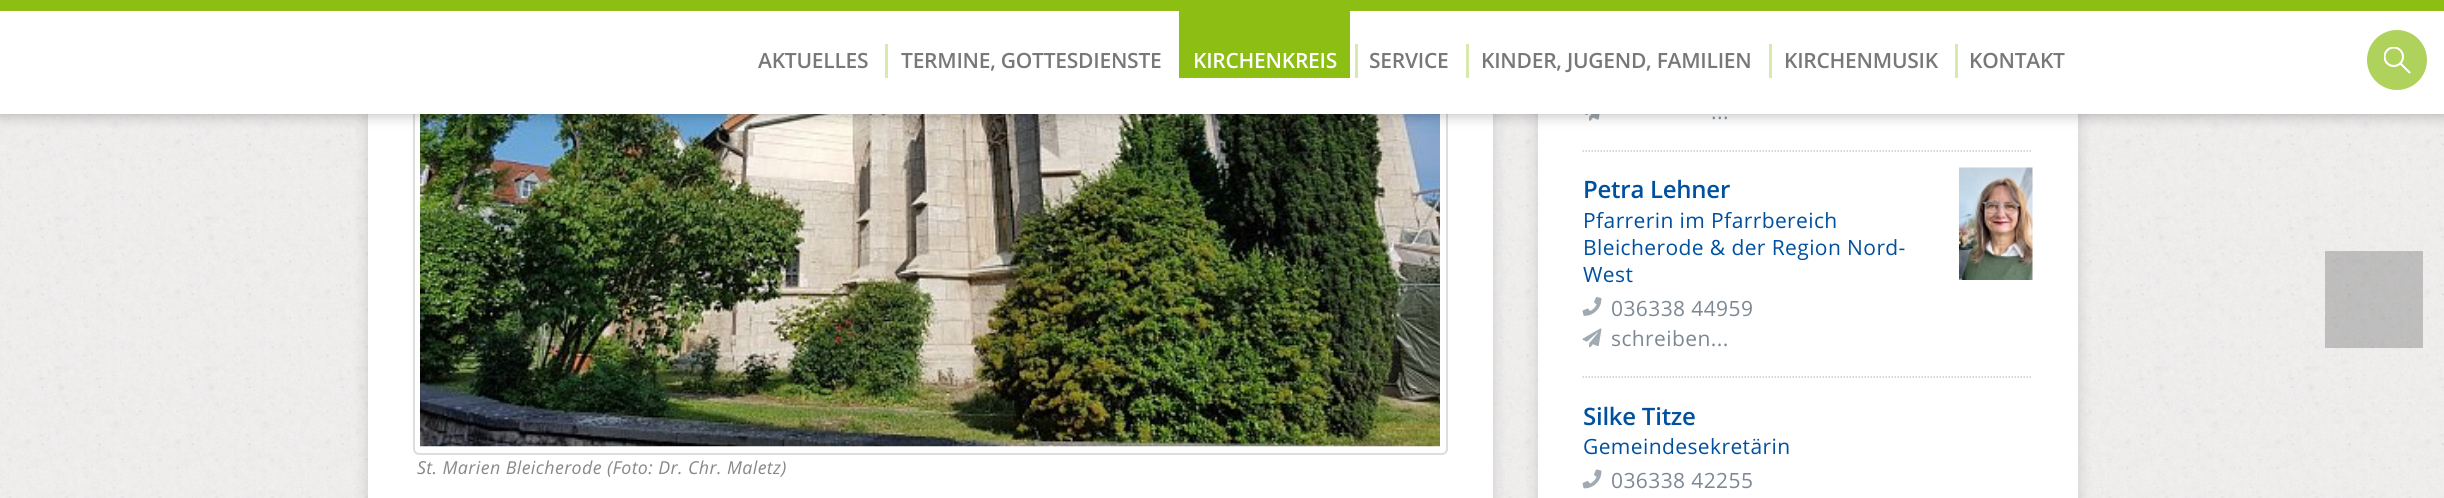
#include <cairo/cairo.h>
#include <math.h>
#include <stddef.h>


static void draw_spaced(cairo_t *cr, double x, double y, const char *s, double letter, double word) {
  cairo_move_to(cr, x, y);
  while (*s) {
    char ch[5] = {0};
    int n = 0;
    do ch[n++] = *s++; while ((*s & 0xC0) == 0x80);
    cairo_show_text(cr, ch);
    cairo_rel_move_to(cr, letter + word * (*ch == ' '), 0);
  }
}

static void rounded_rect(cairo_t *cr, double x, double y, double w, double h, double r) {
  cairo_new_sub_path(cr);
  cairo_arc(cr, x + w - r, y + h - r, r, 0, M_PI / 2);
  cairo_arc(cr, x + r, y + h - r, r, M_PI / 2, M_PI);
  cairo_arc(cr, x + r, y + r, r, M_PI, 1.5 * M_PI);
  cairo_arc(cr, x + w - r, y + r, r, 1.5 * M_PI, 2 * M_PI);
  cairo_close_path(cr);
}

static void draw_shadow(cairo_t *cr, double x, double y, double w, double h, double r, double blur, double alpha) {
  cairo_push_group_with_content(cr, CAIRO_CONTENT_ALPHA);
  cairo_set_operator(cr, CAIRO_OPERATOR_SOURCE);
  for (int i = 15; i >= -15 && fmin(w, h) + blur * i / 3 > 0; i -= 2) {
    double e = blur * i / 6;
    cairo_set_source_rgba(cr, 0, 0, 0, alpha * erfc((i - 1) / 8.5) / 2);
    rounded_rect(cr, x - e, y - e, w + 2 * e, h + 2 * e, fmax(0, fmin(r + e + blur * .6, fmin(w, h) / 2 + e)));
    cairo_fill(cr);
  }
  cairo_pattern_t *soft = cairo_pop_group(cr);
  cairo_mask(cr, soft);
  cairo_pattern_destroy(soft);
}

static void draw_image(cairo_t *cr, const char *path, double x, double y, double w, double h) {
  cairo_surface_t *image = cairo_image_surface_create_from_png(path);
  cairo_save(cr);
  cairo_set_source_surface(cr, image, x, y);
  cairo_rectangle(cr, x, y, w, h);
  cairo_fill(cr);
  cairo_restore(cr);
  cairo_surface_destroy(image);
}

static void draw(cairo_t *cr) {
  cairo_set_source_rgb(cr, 1, 1, 1);
  cairo_paint(cr);
  draw_image(cr, "images/1.png", 0, 114, 2444, 384);
  cairo_set_source_rgb(cr, 0, 0, 0);
  draw_shadow(cr, 368, -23, 1125, 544, 0, 7.5, 0.15);
  cairo_set_source_rgb(cr, 1, 1, 1);
  cairo_rectangle(cr, 368, 114, 1125, 384);
  cairo_fill(cr);
  rounded_rect(cr, 414, -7, 1033, 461, 5);
  cairo_set_source_rgb(cr, 221 / 255.0, 221 / 255.0, 221 / 255.0);
  cairo_stroke(cr);
  draw_image(cr, "images/3.png", 420, 114, 1020, 333);
  cairo_set_source_rgb(cr, 0, 0, 0);
  draw_shadow(cr, 1538, -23, 540, 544, 0, 7.5, 0.15);
  cairo_set_source_rgb(cr, 1, 1, 1);
  cairo_rectangle(cr, 1538, 114, 540, 384);
  cairo_fill(cr);
  draw_image(cr, "images/4.png", 1584, 114, 16, 7);
  cairo_set_source_rgb(cr, 0, 0, 0);
  draw_shadow(cr, 0, 0, 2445, 114, 0, 7.5, 0.3);
  cairo_set_source_rgb(cr, 1, 1, 1);
  cairo_rectangle(cr, 0, 11, 2444, 103);
  cairo_fill(cr);
  cairo_set_source_rgb(cr, 140 / 255.0, 190 / 255.0, 20 / 255.0);
  cairo_rectangle(cr, 0, 0, 2444, 11);
  cairo_fill(cr);
  cairo_set_source_rgb(cr, 215 / 255.0, 233 / 255.0, 173 / 255.0);
  cairo_rectangle(cr, 885, 44, 3, 34);
  cairo_fill(cr);
  cairo_set_source_rgb(cr, 140 / 255.0, 190 / 255.0, 20 / 255.0);
  cairo_rectangle(cr, 1179, 11, 171, 67);
  cairo_fill(cr);
  cairo_set_source_rgb(cr, 215 / 255.0, 233 / 255.0, 173 / 255.0);
  cairo_rectangle(cr, 1355, 44, 3, 34);
  cairo_fill(cr);
  cairo_rectangle(cr, 1466, 44, 3, 34);
  cairo_fill(cr);
  cairo_rectangle(cr, 1769, 44, 3, 34);
  cairo_fill(cr);
  cairo_rectangle(cr, 1955, 44, 3, 34);
  cairo_fill(cr);
  cairo_set_source_rgb(cr, 175 / 255.0, 210 / 255.0, 92 / 255.0);
  cairo_arc(cr, 2397, 60, 30, 0, 2 * M_PI);
  cairo_fill(cr);
  draw_image(cr, "images/2.png", 2384, 47, 27, 27);
  cairo_new_path(cr);
  cairo_move_to(cr, 1582.5, 151);
  cairo_line_to(cr, 2032.5, 151);
  cairo_set_source_rgb(cr, 204 / 255.0, 204 / 255.0, 204 / 255.0);
  cairo_set_line_width(cr, 1.5);
  cairo_set_dash(cr, (double[]){1.5, 1.5}, 2, 0);
  cairo_stroke(cr);
  draw_image(cr, "images/5.png", 1959, 167, 74, 113);
  draw_image(cr, "images/6.png", 1582, 297, 20, 19);
  draw_image(cr, "images/7.png", 1582, 328, 20, 20);
  cairo_new_path(cr);
  cairo_move_to(cr, 1582.5, 377);
  cairo_line_to(cr, 2032.5, 377);
  cairo_stroke(cr);
  draw_image(cr, "images/8.png", 1582, 469, 20, 20);
  cairo_set_source_rgba(cr, 0, 0, 0, 0.2);
  cairo_rectangle(cr, 2325, 251, 98, 97);
  cairo_fill(cr);
  cairo_select_font_face(cr, "Open Sans SemiBold", CAIRO_FONT_SLANT_NORMAL, CAIRO_FONT_WEIGHT_NORMAL);
  cairo_set_font_size(cr, 21);
  cairo_set_source_rgb(cr, 120 / 255.0, 120 / 255.0, 120 / 255.0);
  draw_spaced(cr, 758, 68, "AKTUELLES", -0.25, 0);
  draw_spaced(cr, 901, 68, "TERMINE, GOTTESDIENSTE", -0.25, 0);
  cairo_set_source_rgb(cr, 1, 1, 1);
  draw_spaced(cr, 1193, 68, "KIRCHENKREIS", -0.25, 0);
  cairo_set_source_rgb(cr, 120 / 255.0, 120 / 255.0, 120 / 255.0);
  draw_spaced(cr, 1369, 68, "SERVICE", -0.25, 0);
  draw_spaced(cr, 1481, 68, "KINDER, JUGEND, FAMILIEN", -0.25, 0);
  draw_spaced(cr, 1784, 68, "KIRCHENMUSIK", -0.25, 0);
  draw_spaced(cr, 1969, 68, "KONTAKT", -0.25, 0);
  cairo_select_font_face(cr, "Open Sans", CAIRO_FONT_SLANT_ITALIC, CAIRO_FONT_WEIGHT_NORMAL);
  cairo_set_font_size(cr, 17.85);
  cairo_set_source_rgb(cr, 136 / 255.0, 136 / 255.0, 136 / 255.0);
  draw_spaced(cr, 417, 474, "St. Marien Bleicherode (Foto: Dr. Chr. Maletz)", 0.4, 0);
  cairo_select_font_face(cr, "Open Sans", CAIRO_FONT_SLANT_NORMAL, CAIRO_FONT_WEIGHT_NORMAL);
  cairo_set_font_size(cr, 21);
  cairo_set_source_rgb(cr, 124 / 255.0, 136 / 255.0, 148 / 255.0);
  draw_spaced(cr, 1711, 119, "...", 0.4, 0);
  cairo_select_font_face(cr, "Open Sans SemiBold", CAIRO_FONT_SLANT_NORMAL, CAIRO_FONT_WEIGHT_NORMAL);
  cairo_set_font_size(cr, 24);
  cairo_set_source_rgb(cr, 0, 80 / 255.0, 160 / 255.0);
  draw_spaced(cr, 1583, 198, "Petra Lehner", -0.25, 0);
  cairo_select_font_face(cr, "Open Sans", CAIRO_FONT_SLANT_NORMAL, CAIRO_FONT_WEIGHT_NORMAL);
  cairo_set_font_size(cr, 21);
  draw_spaced(cr, 1583, 228, "Pfarrerin im Pfarrbereich", 0.4, 0);
  draw_spaced(cr, 1583, 255, "Bleicherode & der Region Nord-", 0.4, 0);
  draw_spaced(cr, 1583, 282, "West", 0.4, 0);
  cairo_set_source_rgb(cr, 124 / 255.0, 136 / 255.0, 148 / 255.0);
  draw_spaced(cr, 1611, 316, "036338 44959", 0.4, 0);
  draw_spaced(cr, 1611, 346, "schreiben...", 0.4, 0);
  cairo_select_font_face(cr, "Open Sans SemiBold", CAIRO_FONT_SLANT_NORMAL, CAIRO_FONT_WEIGHT_NORMAL);
  cairo_set_font_size(cr, 24);
  cairo_set_source_rgb(cr, 0, 80 / 255.0, 160 / 255.0);
  draw_spaced(cr, 1583, 425, "Silke Titze", -0.25, 0);
  cairo_select_font_face(cr, "Open Sans", CAIRO_FONT_SLANT_NORMAL, CAIRO_FONT_WEIGHT_NORMAL);
  cairo_set_font_size(cr, 21);
  draw_spaced(cr, 1583, 454, "Gemeindesekretärin", 0.4, 0);
  cairo_set_source_rgb(cr, 124 / 255.0, 136 / 255.0, 148 / 255.0);
  draw_spaced(cr, 1611, 488, "036338 42255", 0.4, 0);
}

int main(void) {
  cairo_surface_t *surface = cairo_image_surface_create(CAIRO_FORMAT_RGB24, 2444, 498);
  cairo_t *cr = cairo_create(surface);
  cairo_font_options_t *options = cairo_font_options_create();
  cairo_font_options_set_hint_metrics(options, CAIRO_HINT_METRICS_OFF);
  cairo_font_options_set_hint_style(options, CAIRO_HINT_STYLE_NONE);
  cairo_set_font_options(cr, options);
  cairo_set_miter_limit(cr, 4);
  draw(cr);
  cairo_surface_write_to_png(surface, "out.png");
  cairo_font_options_destroy(options);
  cairo_destroy(cr);
  cairo_surface_destroy(surface);
  return 0;
}
